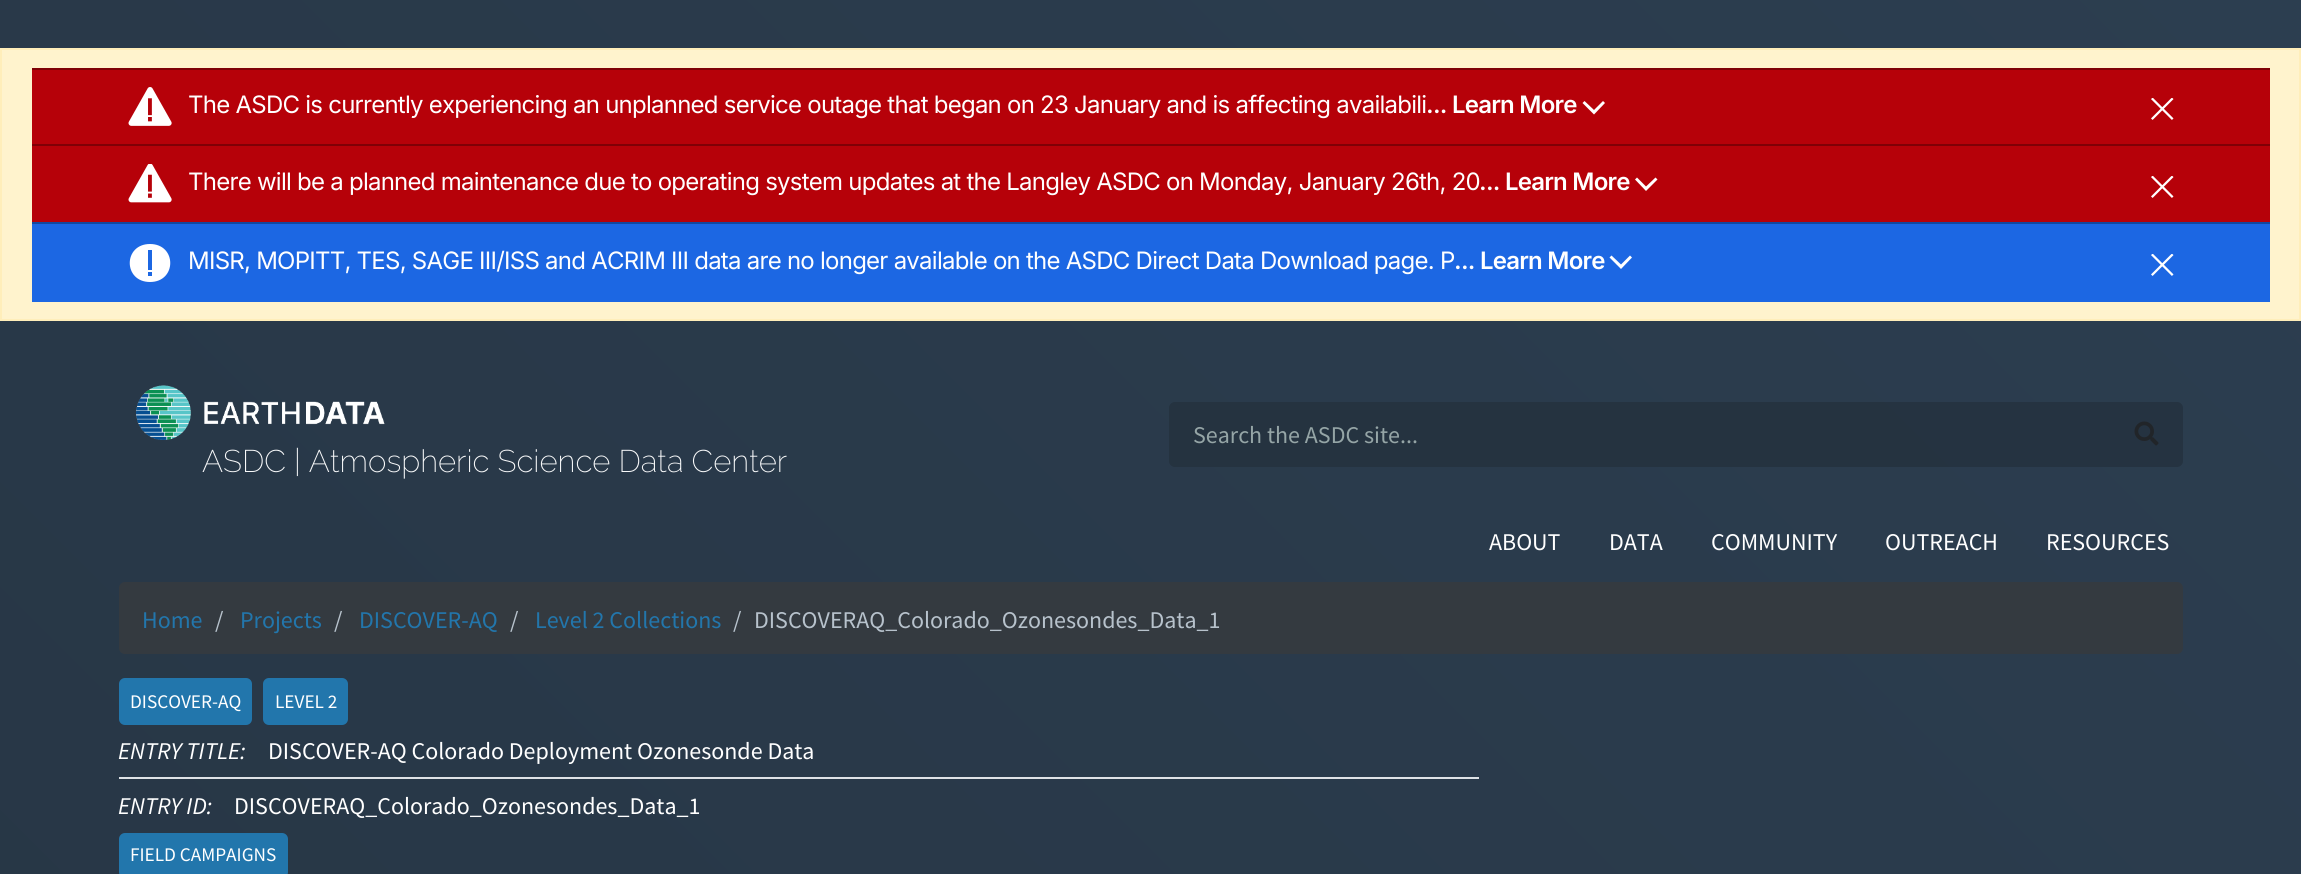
#include <cairo/cairo.h>
#include <math.h>
#include <stddef.h>


static void draw_spaced(cairo_t *cr, double x, double y, const char *s, double letter, double word) {
  cairo_move_to(cr, x, y);
  while (*s) {
    char ch[5] = {0};
    int n = 0;
    do ch[n++] = *s++; while ((*s & 0xC0) == 0x80);
    cairo_show_text(cr, ch);
    cairo_rel_move_to(cr, letter + word * (*ch == ' '), 0);
  }
}

static void rounded_rect(cairo_t *cr, double x, double y, double w, double h, double r) {
  cairo_new_sub_path(cr);
  cairo_arc(cr, x + w - r, y + h - r, r, 0, M_PI / 2);
  cairo_arc(cr, x + r, y + h - r, r, M_PI / 2, M_PI);
  cairo_arc(cr, x + r, y + r, r, M_PI, 1.5 * M_PI);
  cairo_arc(cr, x + w - r, y + r, r, 1.5 * M_PI, 2 * M_PI);
  cairo_close_path(cr);
}

static void draw_image(cairo_t *cr, const char *path, double x, double y, double w, double h) {
  cairo_surface_t *image = cairo_image_surface_create_from_png(path);
  cairo_save(cr);
  cairo_set_source_surface(cr, image, x, y);
  cairo_rectangle(cr, x, y, w, h);
  cairo_fill(cr);
  cairo_restore(cr);
  cairo_surface_destroy(image);
}

static void draw(cairo_t *cr) {
  cairo_pattern_t *gradient;
  cairo_set_source_rgb(cr, 1, 1, 1);
  cairo_paint(cr);
  gradient = cairo_pattern_create_linear(-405, 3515, 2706, 405);
  cairo_pattern_add_color_stop_rgba(gradient, 0, 35 / 255.0, 48 / 255.0, 61 / 255.0, 1);
  cairo_pattern_add_color_stop_rgba(gradient, 1, 44 / 255.0, 62 / 255.0, 80 / 255.0, 1);
  cairo_set_source(cr, gradient);
  cairo_pattern_destroy(gradient);
  cairo_rectangle(cr, 0, 0, 2301, 874);
  cairo_fill(cr);
  cairo_set_source_rgb(cr, 1, 243 / 255.0, 205 / 255.0);
  cairo_rectangle(cr, 1, 49, 2299, 271);
  cairo_fill_preserve(cr);
  cairo_set_source_rgb(cr, 1, 238 / 255.0, 186 / 255.0);
  cairo_stroke(cr);
  cairo_set_source_rgb(cr, 182 / 255.0, 1 / 255.0, 9 / 255.0);
  cairo_rectangle(cr, 32, 70, 2238, 74);
  cairo_fill(cr);
  cairo_set_source_rgb(cr, 127 / 255.0, 0, 6 / 255.0);
  cairo_rectangle(cr, 32, 68, 2238, 2);
  cairo_fill(cr);
  draw_image(cr, "images/1.png", 128, 87, 44, 39);
  cairo_set_source_rgb(cr, 1, 1, 1);
  cairo_set_fill_rule(cr, CAIRO_FILL_RULE_EVEN_ODD);
  cairo_new_path(cr);
  cairo_move_to(cr, 1594, 110);
  cairo_line_to(cr, 1603, 101);
  cairo_line_to(cr, 1605, 103);
  cairo_line_to(cr, 1594, 114.5);
  cairo_line_to(cr, 1582.5, 103);
  cairo_line_to(cr, 1584.5, 101);
  cairo_close_path(cr);
  cairo_fill(cr);
  draw_image(cr, "images/2.png", 2151, 98, 23, 22);
  cairo_set_source_rgb(cr, 182 / 255.0, 1 / 255.0, 9 / 255.0);
  cairo_rectangle(cr, 32, 146, 2238, 76);
  cairo_fill(cr);
  cairo_set_source_rgb(cr, 127 / 255.0, 0, 6 / 255.0);
  cairo_rectangle(cr, 32, 144, 2238, 2);
  cairo_fill(cr);
  draw_image(cr, "images/3.png", 128, 164, 44, 39);
  cairo_set_source_rgb(cr, 1, 1, 1);
  cairo_new_path(cr);
  cairo_move_to(cr, 1646, 186.5);
  cairo_line_to(cr, 1655.5, 177.5);
  cairo_line_to(cr, 1657.5, 179.5);
  cairo_line_to(cr, 1646, 191);
  cairo_line_to(cr, 1635, 179.5);
  cairo_line_to(cr, 1637, 177.5);
  cairo_close_path(cr);
  cairo_fill(cr);
  draw_image(cr, "images/2.png", 2151, 176, 23, 22);
  cairo_set_source_rgb(cr, 28 / 255.0, 103 / 255.0, 227 / 255.0);
  cairo_rectangle(cr, 32, 224, 2238, 78);
  cairo_fill(cr);
  cairo_set_source_rgb(cr, 19 / 255.0, 72 / 255.0, 158 / 255.0);
  cairo_rectangle(cr, 32, 222, 2238, 2);
  cairo_fill(cr);
  cairo_set_source_rgb(cr, 1, 1, 1);
  cairo_new_path(cr);
  cairo_move_to(cr, 150, 282);
  cairo_curve_to(cr, 177, 282, 177, 244, 150, 244);
  cairo_curve_to(cr, 123, 244, 123, 282, 150, 282);
  cairo_close_path(cr);
  cairo_move_to(cr, 148, 270);
  cairo_line_to(cr, 148, 250);
  cairo_line_to(cr, 152, 250);
  cairo_line_to(cr, 152, 270);
  cairo_close_path(cr);
  cairo_move_to(cr, 148, 276);
  cairo_line_to(cr, 148, 272);
  cairo_line_to(cr, 152, 272);
  cairo_line_to(cr, 152, 276);
  cairo_close_path(cr);
  cairo_fill(cr);
  cairo_new_path(cr);
  cairo_move_to(cr, 1621, 264.5);
  cairo_line_to(cr, 1630, 255.5);
  cairo_line_to(cr, 1632, 257.5);
  cairo_line_to(cr, 1621, 269);
  cairo_line_to(cr, 1609.5, 257.5);
  cairo_line_to(cr, 1611.5, 255.5);
  cairo_close_path(cr);
  cairo_fill(cr);
  draw_image(cr, "images/4.png", 2151, 254, 23, 22);
  cairo_set_source_rgba(cr, 35 / 255.0, 48 / 255.0, 61 / 255.0, 0.75);
  rounded_rect(cr, 1169, 402, 1014, 65, 6);
  cairo_fill(cr);
  draw_image(cr, "images/5.png", 2134, 421, 25, 25);
  draw_image(cr, "images/6.png", 136, 385, 249, 55);
  cairo_set_source_rgb(cr, 52 / 255.0, 58 / 255.0, 64 / 255.0);
  rounded_rect(cr, 119, 582, 2064, 72, 6);
  cairo_fill(cr);
  cairo_set_source_rgb(cr, 34 / 255.0, 118 / 255.0, 172 / 255.0);
  rounded_rect(cr, 119, 678, 133, 47, 6);
  cairo_fill(cr);
  rounded_rect(cr, 263, 678, 85, 47, 6);
  cairo_fill(cr);
  cairo_set_source_rgb(cr, 222 / 255.0, 226 / 255.0, 230 / 255.0);
  cairo_rectangle(cr, 119, 777, 1360, 2);
  cairo_fill(cr);
  cairo_set_source_rgb(cr, 34 / 255.0, 118 / 255.0, 172 / 255.0);
  rounded_rect(cr, 119, 833, 169, 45, 6);
  cairo_fill(cr);
  cairo_select_font_face(cr, "Inter", CAIRO_FONT_SLANT_NORMAL, CAIRO_FONT_WEIGHT_NORMAL);
  cairo_set_font_size(cr, 24);
  cairo_set_source_rgb(cr, 1, 1, 1);
  draw_spaced(cr, 188, 113, "The ASDC is currently experiencing an unplanned service outage that began on 23 January and is affecting availabili", -0.75, 0);
  cairo_select_font_face(cr, "Inter SemiBold", CAIRO_FONT_SLANT_NORMAL, CAIRO_FONT_WEIGHT_NORMAL);
  draw_spaced(cr, 1426, 113, "... Learn More", -0.75, 0);
  cairo_select_font_face(cr, "Inter", CAIRO_FONT_SLANT_NORMAL, CAIRO_FONT_WEIGHT_NORMAL);
  draw_spaced(cr, 188, 190, "There will be a planned maintenance due to operating system updates at the Langley ASDC on Monday, January 26th, 20", -0.75, 0);
  cairo_select_font_face(cr, "Inter SemiBold", CAIRO_FONT_SLANT_NORMAL, CAIRO_FONT_WEIGHT_NORMAL);
  draw_spaced(cr, 1479, 190, "... Learn More", -0.75, 0);
  cairo_select_font_face(cr, "Inter", CAIRO_FONT_SLANT_NORMAL, CAIRO_FONT_WEIGHT_NORMAL);
  draw_spaced(cr, 188, 269, "MISR, MOPITT, TES, SAGE III/ISS and ACRIM III data are no longer available on the ASDC Direct Data Download page. P", -0.75, 0);
  cairo_select_font_face(cr, "Inter SemiBold", CAIRO_FONT_SLANT_NORMAL, CAIRO_FONT_WEIGHT_NORMAL);
  draw_spaced(cr, 1454, 269, "... Learn More", -0.75, 0);
  cairo_select_font_face(cr, "Source Sans Pro", CAIRO_FONT_SLANT_NORMAL, CAIRO_FONT_WEIGHT_NORMAL);
  cairo_set_source_rgb(cr, 149 / 255.0, 165 / 255.0, 166 / 255.0);
  cairo_move_to(cr, 1193, 443);
  cairo_show_text(cr, "Search the ASDC site...");
  cairo_select_font_face(cr, "Raleway ExtraLight", CAIRO_FONT_SLANT_NORMAL, CAIRO_FONT_WEIGHT_NORMAL);
  cairo_set_font_size(cr, 31.25);
  cairo_set_source_rgb(cr, 248 / 255.0, 249 / 255.0, 250 / 255.0);
  cairo_move_to(cr, 202, 472);
  cairo_show_text(cr, "ASDC | Atmospheric Science Data Center");
  cairo_select_font_face(cr, "Source Sans Pro", CAIRO_FONT_SLANT_NORMAL, CAIRO_FONT_WEIGHT_NORMAL);
  cairo_set_font_size(cr, 24);
  cairo_set_source_rgb(cr, 1, 1, 1);
  cairo_move_to(cr, 1489, 550);
  cairo_show_text(cr, "ABOUT");
  cairo_move_to(cr, 1609, 550);
  cairo_show_text(cr, "DATA");
  cairo_move_to(cr, 1711, 550);
  cairo_show_text(cr, "COMMUNITY");
  cairo_move_to(cr, 1885, 550);
  cairo_show_text(cr, "OUTREACH");
  cairo_move_to(cr, 2046, 550);
  cairo_show_text(cr, "RESOURCES");
  cairo_set_source_rgb(cr, 34 / 255.0, 118 / 255.0, 172 / 255.0);
  cairo_move_to(cr, 142, 628);
  cairo_show_text(cr, "Home");
  cairo_set_source_rgb(cr, 183 / 255.0, 194 / 255.0, 204 / 255.0);
  cairo_move_to(cr, 215, 628);
  cairo_show_text(cr, "/");
  cairo_set_source_rgb(cr, 34 / 255.0, 118 / 255.0, 172 / 255.0);
  cairo_move_to(cr, 240, 628);
  cairo_show_text(cr, "Projects");
  cairo_set_source_rgb(cr, 183 / 255.0, 194 / 255.0, 204 / 255.0);
  cairo_move_to(cr, 334, 628);
  cairo_show_text(cr, "/");
  cairo_set_source_rgb(cr, 34 / 255.0, 118 / 255.0, 172 / 255.0);
  cairo_move_to(cr, 359, 628);
  cairo_show_text(cr, "DISCOVER-AQ");
  cairo_set_source_rgb(cr, 183 / 255.0, 194 / 255.0, 204 / 255.0);
  cairo_move_to(cr, 510, 628);
  cairo_show_text(cr, "/");
  cairo_set_source_rgb(cr, 34 / 255.0, 118 / 255.0, 172 / 255.0);
  cairo_move_to(cr, 535, 628);
  cairo_show_text(cr, "Level 2 Collections");
  cairo_set_source_rgb(cr, 183 / 255.0, 194 / 255.0, 204 / 255.0);
  cairo_move_to(cr, 733, 628);
  cairo_show_text(cr, "/");
  cairo_move_to(cr, 754, 628);
  cairo_show_text(cr, "DISCOVERAQ_Colorado_Ozonesondes_Data_1");
  cairo_set_font_size(cr, 19.25);
  cairo_set_source_rgb(cr, 1, 1, 1);
  cairo_move_to(cr, 130, 708);
  cairo_show_text(cr, "DISCOVER-AQ");
  cairo_move_to(cr, 275, 708);
  cairo_show_text(cr, "LEVEL 2");
  cairo_select_font_face(cr, "Source Sans Pro", CAIRO_FONT_SLANT_ITALIC, CAIRO_FONT_WEIGHT_NORMAL);
  cairo_set_font_size(cr, 24);
  cairo_move_to(cr, 118, 759);
  cairo_show_text(cr, "ENTRY TITLE:");
  cairo_select_font_face(cr, "Source Sans Pro", CAIRO_FONT_SLANT_NORMAL, CAIRO_FONT_WEIGHT_NORMAL);
  cairo_move_to(cr, 268, 759);
  cairo_show_text(cr, "DISCOVER-AQ Colorado Deployment Ozonesonde Data");
  cairo_select_font_face(cr, "Source Sans Pro", CAIRO_FONT_SLANT_ITALIC, CAIRO_FONT_WEIGHT_NORMAL);
  cairo_move_to(cr, 118, 814);
  cairo_show_text(cr, "ENTRY ID:");
  cairo_select_font_face(cr, "Source Sans Pro", CAIRO_FONT_SLANT_NORMAL, CAIRO_FONT_WEIGHT_NORMAL);
  cairo_move_to(cr, 234, 814);
  cairo_show_text(cr, "DISCOVERAQ_Colorado_Ozonesondes_Data_1");
  cairo_set_font_size(cr, 19.25);
  cairo_move_to(cr, 130, 861);
  cairo_show_text(cr, "FIELD CAMPAIGNS");
}

int main(void) {
  cairo_surface_t *surface = cairo_image_surface_create(CAIRO_FORMAT_RGB24, 2301, 874);
  cairo_t *cr = cairo_create(surface);
  cairo_font_options_t *options = cairo_font_options_create();
  cairo_font_options_set_hint_metrics(options, CAIRO_HINT_METRICS_OFF);
  cairo_font_options_set_hint_style(options, CAIRO_HINT_STYLE_NONE);
  cairo_set_font_options(cr, options);
  cairo_set_miter_limit(cr, 4);
  draw(cr);
  cairo_surface_write_to_png(surface, "out.png");
  cairo_font_options_destroy(options);
  cairo_destroy(cr);
  cairo_surface_destroy(surface);
  return 0;
}
